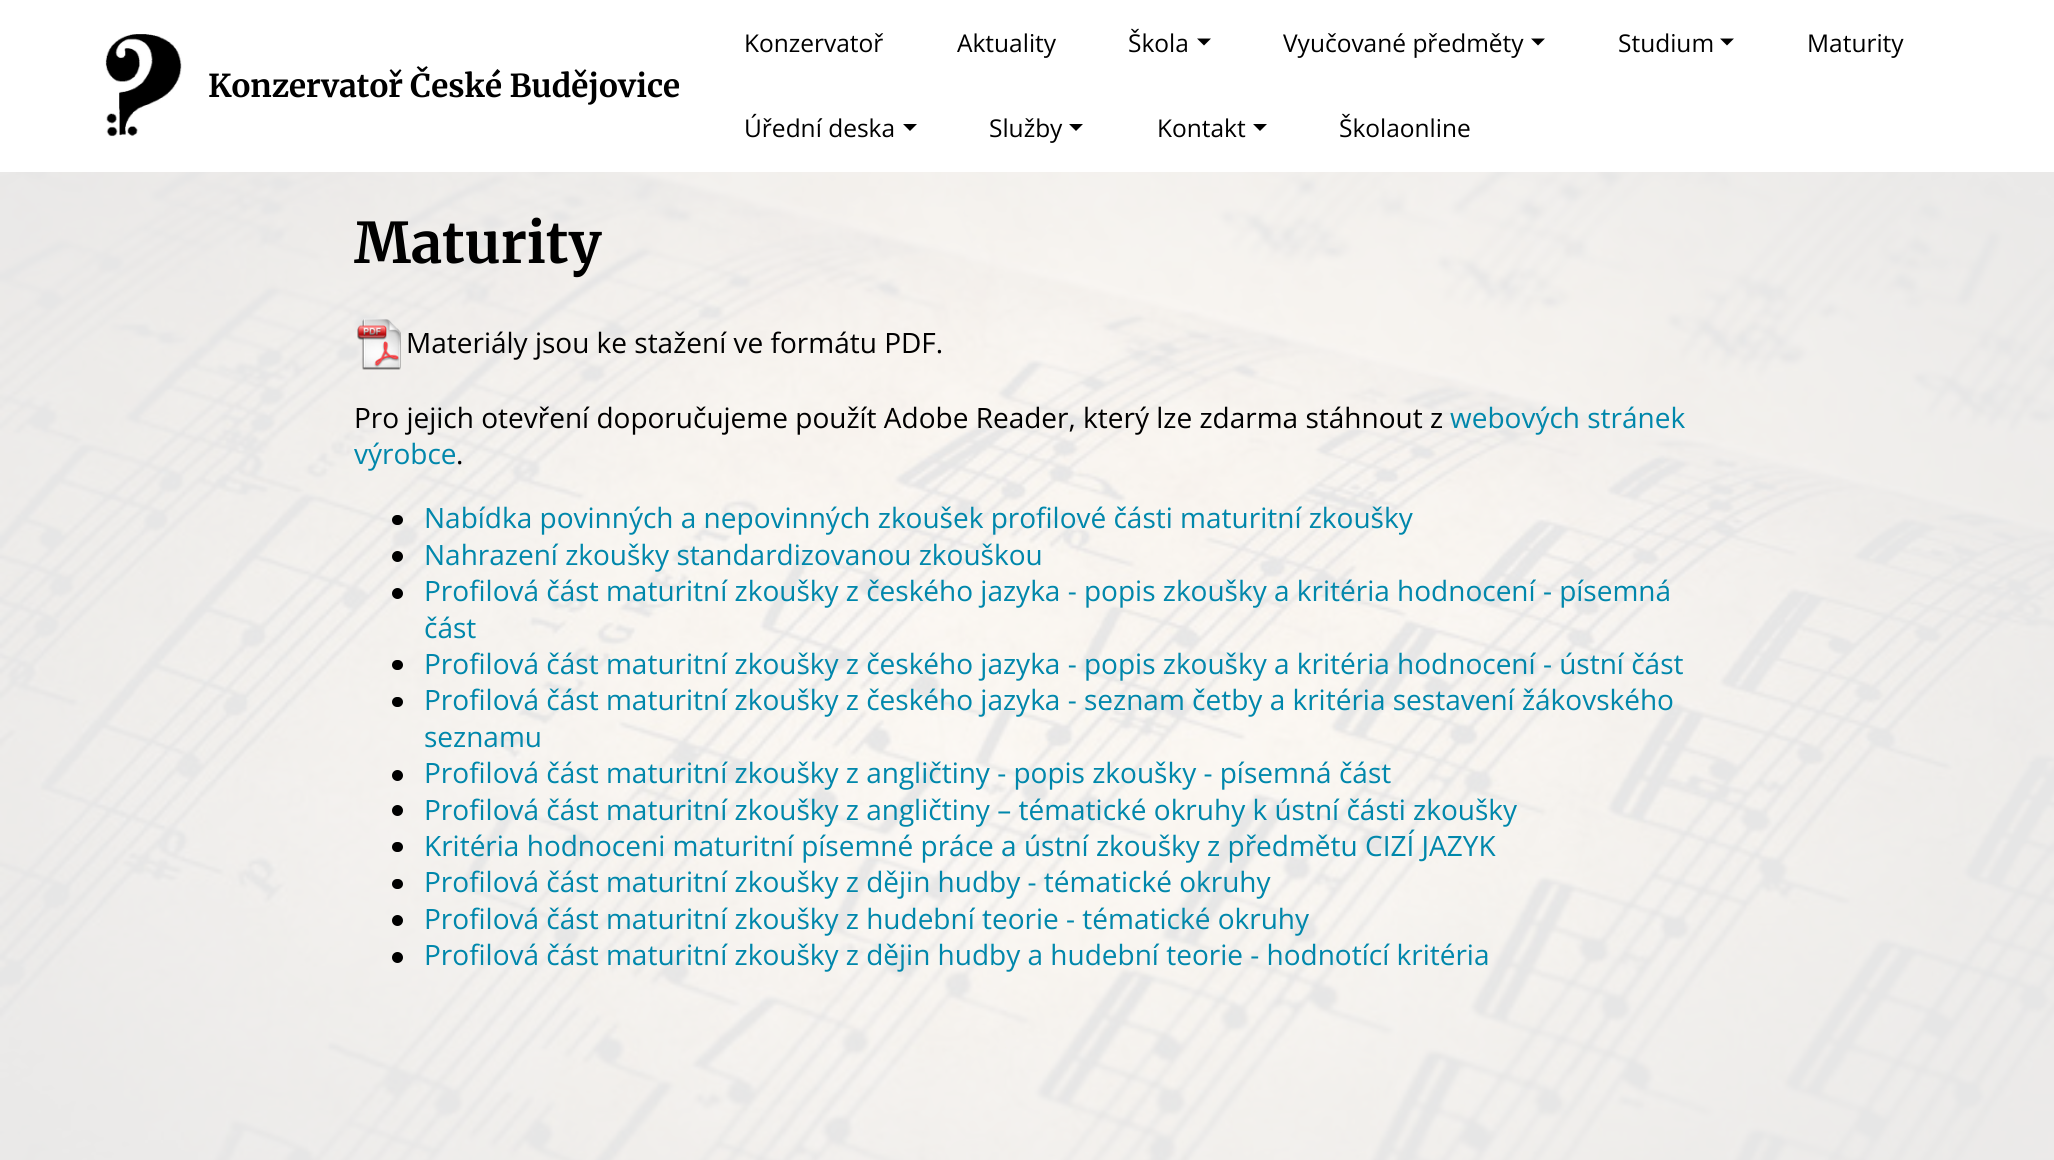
#include <cairo/cairo.h>
#include <math.h>
#include <stddef.h>


static void rounded_rect(cairo_t *cr, double x, double y, double w, double h, double r) {
  cairo_new_sub_path(cr);
  cairo_arc(cr, x + w - r, y + h - r, r, 0, M_PI / 2);
  cairo_arc(cr, x + r, y + h - r, r, M_PI / 2, M_PI);
  cairo_arc(cr, x + r, y + r, r, M_PI, 1.5 * M_PI);
  cairo_arc(cr, x + w - r, y + r, r, 1.5 * M_PI, 2 * M_PI);
  cairo_close_path(cr);
}

static void draw_image(cairo_t *cr, const char *path, double x, double y, double w, double h) {
  cairo_surface_t *image = cairo_image_surface_create_from_png(path);
  cairo_save(cr);
  cairo_set_source_surface(cr, image, x, y);
  cairo_rectangle(cr, x, y, w, h);
  cairo_fill(cr);
  cairo_restore(cr);
  cairo_surface_destroy(image);
}

static void draw(cairo_t *cr) {
  cairo_set_source_rgb(cr, 1, 1, 1);
  cairo_paint(cr);
  draw_image(cr, "images/1.png", 105, 34, 77, 103);
  cairo_set_source_rgb(cr, 0, 0, 0);
  cairo_new_path(cr);
  cairo_move_to(cr, 1197, 38.5);
  cairo_line_to(cr, 1211, 38.5);
  cairo_line_to(cr, 1204, 45.5);
  cairo_close_path(cr);
  cairo_fill(cr);
  cairo_new_path(cr);
  cairo_move_to(cr, 1531, 38.5);
  cairo_line_to(cr, 1545, 38.5);
  cairo_line_to(cr, 1538, 45.5);
  cairo_close_path(cr);
  cairo_fill(cr);
  cairo_new_path(cr);
  cairo_move_to(cr, 1720, 38.5);
  cairo_line_to(cr, 1734, 38.5);
  cairo_line_to(cr, 1727, 45.5);
  cairo_close_path(cr);
  cairo_fill(cr);
  cairo_new_path(cr);
  cairo_move_to(cr, 903, 124);
  cairo_line_to(cr, 917, 124);
  cairo_line_to(cr, 910, 131);
  cairo_close_path(cr);
  cairo_fill(cr);
  cairo_new_path(cr);
  cairo_move_to(cr, 1069, 124);
  cairo_line_to(cr, 1083, 124);
  cairo_line_to(cr, 1076, 131);
  cairo_close_path(cr);
  cairo_fill(cr);
  cairo_new_path(cr);
  cairo_move_to(cr, 1253, 124);
  cairo_line_to(cr, 1267, 124);
  cairo_line_to(cr, 1260, 131);
  cairo_close_path(cr);
  cairo_fill(cr);
  draw_image(cr, "images/2.png", 0, 172, 2054, 988);
  draw_image(cr, "images/3.png", 357, 318, 44, 52);
  rounded_rect(cr, 392, 515, 11, 10, 5);
  cairo_fill(cr);
  cairo_arc(cr, 397.5, 556.5, 5.5, 0, 2 * M_PI);
  cairo_fill(cr);
  cairo_arc(cr, 397.5, 593.5, 5.5, 0, 2 * M_PI);
  cairo_fill(cr);
  rounded_rect(cr, 392, 660, 11, 10, 5);
  cairo_fill(cr);
  rounded_rect(cr, 392, 697, 11, 10, 5);
  cairo_fill(cr);
  cairo_arc(cr, 397.5, 775.5, 5.5, 0, 2 * M_PI);
  cairo_fill(cr);
  cairo_arc(cr, 397.5, 810.5, 5.5, 0, 2 * M_PI);
  cairo_fill(cr);
  rounded_rect(cr, 392, 842, 11, 10, 5);
  cairo_fill(cr);
  rounded_rect(cr, 392, 879, 11, 10, 5);
  cairo_fill(cr);
  cairo_arc(cr, 397.5, 920.5, 5.5, 0, 2 * M_PI);
  cairo_fill(cr);
  cairo_arc(cr, 397.5, 957.5, 5.5, 0, 2 * M_PI);
  cairo_fill(cr);
  cairo_select_font_face(cr, "Merriweather", CAIRO_FONT_SLANT_NORMAL, CAIRO_FONT_WEIGHT_BOLD);
  cairo_set_font_size(cr, 31.5);
  cairo_move_to(cr, 208, 97);
  cairo_show_text(cr, "Konzervatoř České Budějovice");
  cairo_select_font_face(cr, "Open Sans", CAIRO_FONT_SLANT_NORMAL, CAIRO_FONT_WEIGHT_NORMAL);
  cairo_set_font_size(cr, 24.5);
  cairo_move_to(cr, 744, 52);
  cairo_show_text(cr, "Konzervatoř");
  cairo_move_to(cr, 957, 52);
  cairo_show_text(cr, "Aktuality");
  cairo_move_to(cr, 1128, 52);
  cairo_show_text(cr, "Škola");
  cairo_move_to(cr, 1283, 52);
  cairo_show_text(cr, "Vyučované předměty");
  cairo_move_to(cr, 1618, 52);
  cairo_show_text(cr, "Studium");
  cairo_move_to(cr, 1807, 52);
  cairo_show_text(cr, "Maturity");
  cairo_move_to(cr, 744, 137);
  cairo_show_text(cr, "Úřední deska");
  cairo_move_to(cr, 989, 137);
  cairo_show_text(cr, "Služby");
  cairo_move_to(cr, 1157, 137);
  cairo_show_text(cr, "Kontakt");
  cairo_move_to(cr, 1339, 137);
  cairo_show_text(cr, "Školaonline");
  cairo_select_font_face(cr, "Merriweather", CAIRO_FONT_SLANT_NORMAL, CAIRO_FONT_WEIGHT_BOLD);
  cairo_set_font_size(cr, 56);
  cairo_move_to(cr, 354, 263);
  cairo_show_text(cr, "Maturity");
  cairo_select_font_face(cr, "Open Sans", CAIRO_FONT_SLANT_NORMAL, CAIRO_FONT_WEIGHT_NORMAL);
  cairo_set_font_size(cr, 28);
  cairo_move_to(cr, 406, 353);
  cairo_show_text(cr, "Materiály jsou ke stažení ve formátu PDF.");
  cairo_move_to(cr, 354, 428);
  cairo_show_text(cr, "Pro jejich otevření doporučujeme použít Adobe Reader, který lze zdarma stáhnout z");
  cairo_set_source_rgb(cr, 0, 135 / 255.0, 171 / 255.0);
  cairo_move_to(cr, 1450, 428);
  cairo_show_text(cr, "webových stránek");
  cairo_move_to(cr, 354, 464);
  cairo_show_text(cr, "výrobce");
  cairo_set_source_rgb(cr, 0, 0, 0);
  cairo_move_to(cr, 456, 464);
  cairo_show_text(cr, ".");
  cairo_set_source_rgb(cr, 0, 135 / 255.0, 171 / 255.0);
  cairo_move_to(cr, 424, 528);
  cairo_show_text(cr, "Nabídka povinných a nepovinných zkoušek profilové části maturitní zkoušky");
  cairo_move_to(cr, 424, 565);
  cairo_show_text(cr, "Nahrazení zkoušky standardizovanou zkouškou");
  cairo_move_to(cr, 424, 601);
  cairo_show_text(cr, "Profilová část maturitní zkoušky z českého jazyka - popis zkoušky a kritéria hodnocení - písemná");
  cairo_move_to(cr, 424, 638);
  cairo_show_text(cr, "část");
  cairo_move_to(cr, 424, 674);
  cairo_show_text(cr, "Profilová část maturitní zkoušky z českého jazyka - popis zkoušky a kritéria hodnocení - ústní část");
  cairo_move_to(cr, 424, 710);
  cairo_show_text(cr, "Profilová část maturitní zkoušky z českého jazyka - seznam četby a kritéria sestavení žákovského");
  cairo_move_to(cr, 424, 747);
  cairo_show_text(cr, "seznamu");
  cairo_move_to(cr, 424, 783);
  cairo_show_text(cr, "Profilová část maturitní zkoušky z angličtiny - popis zkoušky - písemná část");
  cairo_move_to(cr, 424, 820);
  cairo_show_text(cr, "Profilová část maturitní zkoušky z angličtiny – tématické okruhy k ústní části zkoušky");
  cairo_move_to(cr, 424, 856);
  cairo_show_text(cr, "Kritéria hodnoceni maturitní písemné práce a ústní zkoušky z předmětu CIZÍ JAZYK");
  cairo_move_to(cr, 424, 892);
  cairo_show_text(cr, "Profilová část maturitní zkoušky z dějin hudby - tématické okruhy");
  cairo_move_to(cr, 424, 929);
  cairo_show_text(cr, "Profilová část maturitní zkoušky z hudební teorie - tématické okruhy");
  cairo_move_to(cr, 424, 965);
  cairo_show_text(cr, "Profilová část maturitní zkoušky z dějin hudby a hudební teorie - hodnotící kritéria");
}

int main(void) {
  cairo_surface_t *surface = cairo_image_surface_create(CAIRO_FORMAT_RGB24, 2054, 1160);
  cairo_t *cr = cairo_create(surface);
  cairo_font_options_t *options = cairo_font_options_create();
  cairo_font_options_set_hint_metrics(options, CAIRO_HINT_METRICS_OFF);
  cairo_font_options_set_hint_style(options, CAIRO_HINT_STYLE_NONE);
  cairo_set_font_options(cr, options);
  cairo_set_miter_limit(cr, 4);
  draw(cr);
  cairo_surface_write_to_png(surface, "out.png");
  cairo_font_options_destroy(options);
  cairo_destroy(cr);
  cairo_surface_destroy(surface);
  return 0;
}
